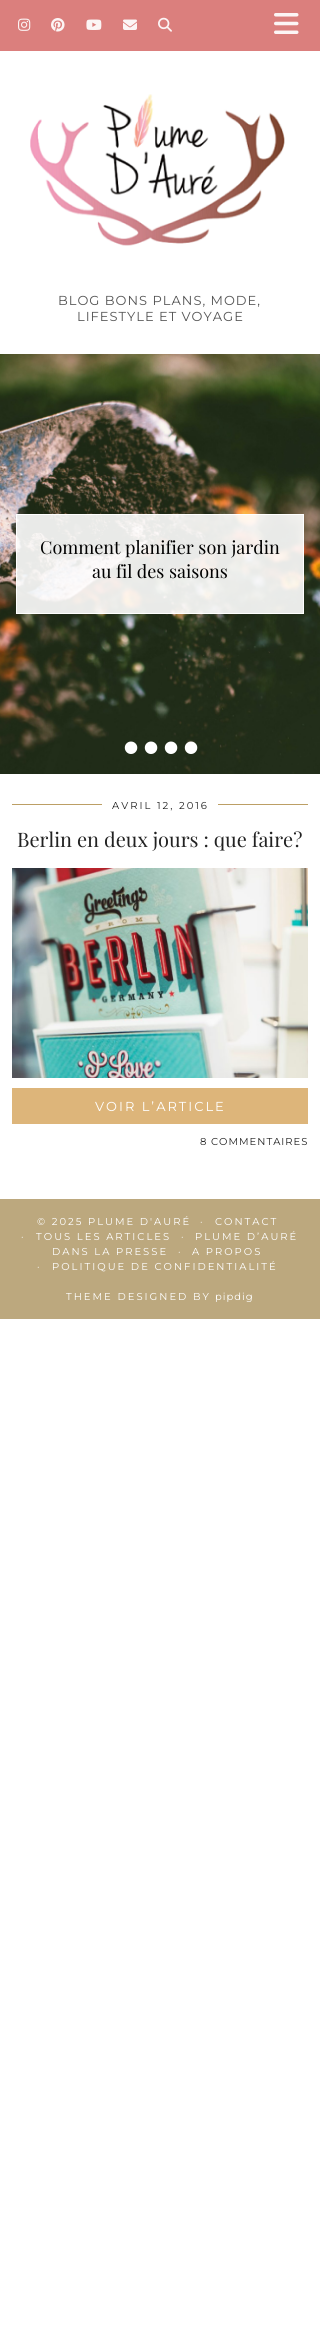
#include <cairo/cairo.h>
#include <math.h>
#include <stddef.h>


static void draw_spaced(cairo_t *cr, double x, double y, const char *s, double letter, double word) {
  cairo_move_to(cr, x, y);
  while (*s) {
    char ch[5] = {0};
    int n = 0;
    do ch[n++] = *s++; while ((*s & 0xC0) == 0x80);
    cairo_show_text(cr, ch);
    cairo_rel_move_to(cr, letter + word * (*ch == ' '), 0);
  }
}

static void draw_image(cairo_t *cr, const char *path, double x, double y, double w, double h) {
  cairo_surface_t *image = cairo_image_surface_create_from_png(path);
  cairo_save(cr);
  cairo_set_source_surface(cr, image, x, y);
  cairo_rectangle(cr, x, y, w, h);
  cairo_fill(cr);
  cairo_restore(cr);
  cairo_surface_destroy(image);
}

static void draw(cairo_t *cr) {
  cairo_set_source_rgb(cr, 1, 1, 1);
  cairo_paint(cr);
  cairo_set_source_rgb(cr, 219 / 255.0, 127 / 255.0, 125 / 255.0);
  cairo_rectangle(cr, 0, 0, 320, 51);
  cairo_fill(cr);
  draw_image(cr, "images/1.png", 18, 18, 13, 13);
  draw_image(cr, "images/2.png", 51, 18, 14, 14);
  draw_image(cr, "images/3.png", 86, 19, 16, 11);
  draw_image(cr, "images/4.png", 123, 19, 14, 11);
  draw_image(cr, "images/5.png", 158, 17, 14, 15);
  draw_image(cr, "images/6.png", 274, 13, 25, 21);
  draw_image(cr, "images/7.png", 30, 94, 255, 152);
  draw_image(cr, "images/8.png", 0, 354, 320, 420);
  cairo_set_source_rgba(cr, 1, 1, 1, 0.9);
  cairo_rectangle(cr, 16.5, 514.5, 287, 99);
  cairo_fill_preserve(cr);
  cairo_set_source_rgb(cr, 1, 1, 1);
  cairo_set_line_width(cr, 1);
  cairo_stroke(cr);
  cairo_set_source_rgb(cr, 188 / 255.0, 159 / 255.0, 101 / 255.0);
  cairo_rectangle(cr, 12, 804, 296, 1);
  cairo_fill(cr);
  cairo_set_source_rgb(cr, 1, 1, 1);
  cairo_rectangle(cr, 102, 804, 116, 1);
  cairo_fill(cr);
  draw_image(cr, "images/9.png", 12, 868, 296, 210);
  cairo_set_source_rgb(cr, 221 / 255.0, 181 / 255.0, 122 / 255.0);
  cairo_rectangle(cr, 12, 1088, 296, 36);
  cairo_fill(cr);
  cairo_set_source_rgb(cr, 188 / 255.0, 168 / 255.0, 126 / 255.0);
  cairo_rectangle(cr, 0, 1199, 320, 120);
  cairo_fill(cr);
  cairo_select_font_face(cr, "Montserrat Thin", CAIRO_FONT_SLANT_NORMAL, CAIRO_FONT_WEIGHT_NORMAL);
  cairo_set_font_size(cr, 13);
  cairo_set_source_rgb(cr, 85 / 255.0, 85 / 255.0, 85 / 255.0);
  draw_spaced(cr, 58, 305, "BLOG BONS PLANS, MODE,", 1, 0);
  draw_spaced(cr, 77, 321, "LIFESTYLE ET VOYAGE", 1, 0);
  cairo_select_font_face(cr, "Playfair Display", CAIRO_FONT_SLANT_NORMAL, CAIRO_FONT_WEIGHT_NORMAL);
  cairo_set_font_size(cr, 18);
  cairo_set_source_rgb(cr, 0, 0, 0);
  cairo_move_to(cr, 40, 554);
  cairo_show_text(cr, "Comment planifier son jardin");
  cairo_move_to(cr, 92, 578);
  cairo_show_text(cr, "au fil des saisons");
  cairo_select_font_face(cr, "Liberation Sans", CAIRO_FONT_SLANT_NORMAL, CAIRO_FONT_WEIGHT_NORMAL);
  cairo_set_font_size(cr, 46);
  cairo_set_source_rgb(cr, 1, 1, 1);
  cairo_move_to(cr, 123, 763);
  cairo_show_text(cr, "•");
  cairo_move_to(cr, 143, 763);
  cairo_show_text(cr, "•");
  cairo_move_to(cr, 163, 763);
  cairo_show_text(cr, "•");
  cairo_move_to(cr, 183, 763);
  cairo_show_text(cr, "•");
  cairo_select_font_face(cr, "Montserrat Thin", CAIRO_FONT_SLANT_NORMAL, CAIRO_FONT_WEIGHT_NORMAL);
  cairo_set_font_size(cr, 10);
  cairo_set_source_rgb(cr, 34 / 255.0, 34 / 255.0, 34 / 255.0);
  draw_spaced(cr, 112, 809, "AVRIL 12, 2016", 2, 0);
  cairo_select_font_face(cr, "Playfair Display", CAIRO_FONT_SLANT_NORMAL, CAIRO_FONT_WEIGHT_NORMAL);
  cairo_set_font_size(cr, 20);
  cairo_move_to(cr, 17, 847);
  cairo_show_text(cr, "Berlin en deux jours : que faire?");
  cairo_select_font_face(cr, "Montserrat Thin", CAIRO_FONT_SLANT_NORMAL, CAIRO_FONT_WEIGHT_NORMAL);
  cairo_set_font_size(cr, 13);
  cairo_set_source_rgb(cr, 1, 1, 1);
  draw_spaced(cr, 95, 1111, "VOIR L’ARTICLE", 2, 0);
  cairo_set_font_size(cr, 10);
  cairo_set_source_rgb(cr, 34 / 255.0, 34 / 255.0, 34 / 255.0);
  draw_spaced(cr, 200, 1145, "8 COMMENTAIRES", 1, 0);
  cairo_set_source_rgb(cr, 1, 1, 1);
  draw_spaced(cr, 37, 1225, "© 2025 PLUME D'AURÉ", 2, 0);
  draw_spaced(cr, 200, 1225, "·", 2, 0);
  draw_spaced(cr, 215, 1225, "CONTACT", 2, 0);
  draw_spaced(cr, 21, 1240, "·", 2, 0);
  draw_spaced(cr, 36, 1240, "TOUS LES ARTICLES", 2, 0);
  draw_spaced(cr, 181, 1240, "·", 2, 0);
  draw_spaced(cr, 195, 1240, "PLUME D’AURÉ", 2, 0);
  draw_spaced(cr, 52, 1255, "DANS LA PRESSE", 2, 0);
  draw_spaced(cr, 178, 1255, "·", 2, 0);
  draw_spaced(cr, 192, 1255, "A PROPOS", 2, 0);
  draw_spaced(cr, 37, 1270, "·", 2, 0);
  draw_spaced(cr, 52, 1270, "POLITIQUE DE CONFIDENTIALITÉ", 2, 0);
  draw_spaced(cr, 66, 1300, "THEME DESIGNED BY", 2, 0);
  draw_spaced(cr, 215, 1300, "pipdig", 1, 0);
}

int main(void) {
  cairo_surface_t *surface = cairo_image_surface_create(CAIRO_FORMAT_RGB24, 320, 2343);
  cairo_t *cr = cairo_create(surface);
  cairo_font_options_t *options = cairo_font_options_create();
  cairo_font_options_set_hint_metrics(options, CAIRO_HINT_METRICS_OFF);
  cairo_font_options_set_hint_style(options, CAIRO_HINT_STYLE_NONE);
  cairo_set_font_options(cr, options);
  cairo_set_miter_limit(cr, 4);
  draw(cr);
  cairo_surface_write_to_png(surface, "out.png");
  cairo_font_options_destroy(options);
  cairo_destroy(cr);
  cairo_surface_destroy(surface);
  return 0;
}
